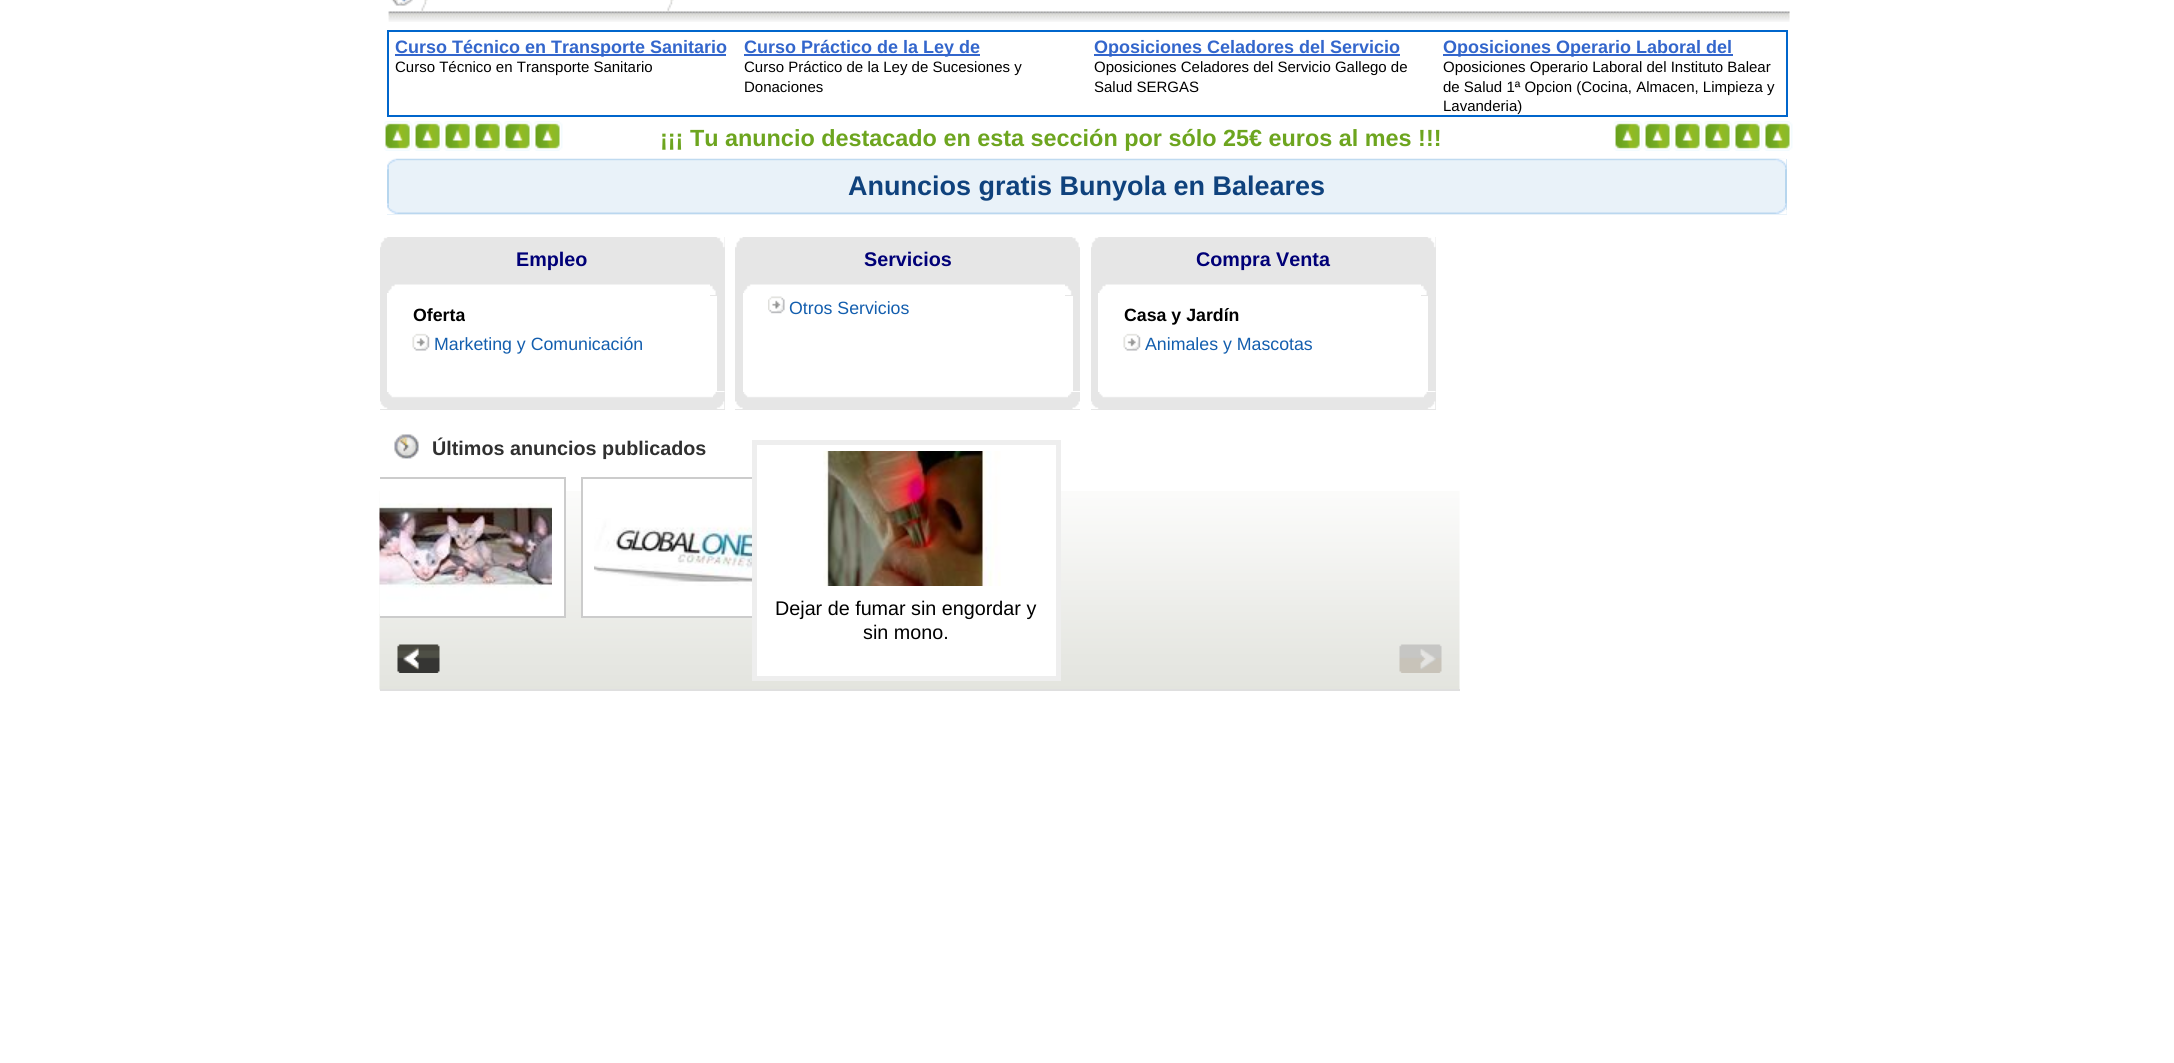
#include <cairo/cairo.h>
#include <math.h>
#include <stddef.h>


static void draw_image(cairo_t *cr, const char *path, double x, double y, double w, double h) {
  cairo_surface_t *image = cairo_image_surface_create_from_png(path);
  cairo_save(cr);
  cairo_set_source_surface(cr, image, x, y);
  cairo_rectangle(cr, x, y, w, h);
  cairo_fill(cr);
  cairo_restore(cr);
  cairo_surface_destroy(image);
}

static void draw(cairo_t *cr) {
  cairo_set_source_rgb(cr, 1, 1, 1);
  cairo_paint(cr);
  draw_image(cr, "images/1.png", 421, 0, 7, 12);
  draw_image(cr, "images/2.png", 391, 0, 22, 6);
  draw_image(cr, "images/1.png", 667, 0, 7, 12);
  draw_image(cr, "images/3.png", 388, 11, 1402, 11);
  cairo_rectangle(cr, 388, 31, 1399, 85);
  cairo_set_source_rgb(cr, 0, 102 / 255.0, 204 / 255.0);
  cairo_stroke(cr);
  cairo_set_source_rgb(cr, 51 / 255.0, 102 / 255.0, 204 / 255.0);
  cairo_rectangle(cr, 395, 54, 331, 2);
  cairo_fill(cr);
  cairo_rectangle(cr, 744, 54, 236, 2);
  cairo_fill(cr);
  cairo_rectangle(cr, 1094, 54, 306, 2);
  cairo_fill(cr);
  cairo_rectangle(cr, 1443, 54, 290, 2);
  cairo_fill(cr);
  cairo_set_source_rgb(cr, 233 / 255.0, 242 / 255.0, 249 / 255.0);
  cairo_rectangle(cr, 387, 159, 1400, 56);
  cairo_fill(cr);
  draw_image(cr, "images/4.png", 1668, 158, 118, 1);
  cairo_set_source_rgb(cr, 183 / 255.0, 214 / 255.0, 238 / 255.0);
  cairo_rectangle(cr, 1785, 159, 2, 51);
  cairo_fill(cr);
  cairo_rectangle(cr, 387, 159, 2, 51);
  cairo_fill(cr);
  draw_image(cr, "images/5.png", 387, 158, 1400, 12);
  draw_image(cr, "images/6.png", 387, 203, 1400, 11);
  cairo_set_source_rgb(cr, 230 / 255.0, 230 / 255.0, 230 / 255.0);
  cairo_rectangle(cr, 380, 237, 333, 173);
  cairo_fill(cr);
  draw_image(cr, "images/7.png", 380, 237, 330, 56);
  cairo_set_source_rgb(cr, 1, 1, 1);
  cairo_rectangle(cr, 387, 293, 326, 99);
  cairo_fill(cr);
  cairo_set_source_rgb(cr, 230 / 255.0, 230 / 255.0, 230 / 255.0);
  cairo_rectangle(cr, 717, 293, 8, 99);
  cairo_fill(cr);
  cairo_rectangle(cr, 710, 237, 15, 59);
  cairo_fill(cr);
  draw_image(cr, "images/8.png", 710, 237, 15, 58);
  draw_image(cr, "images/9.png", 412, 333, 18, 18);
  draw_image(cr, "images/10.png", 380, 391, 345, 18);
  cairo_rectangle(cr, 713, 392, 12, 18);
  cairo_fill(cr);
  draw_image(cr, "images/11.png", 713, 392, 12, 17);
  cairo_rectangle(cr, 735, 237, 333, 173);
  cairo_fill(cr);
  draw_image(cr, "images/12.png", 735, 237, 330, 56);
  cairo_set_source_rgb(cr, 1, 1, 1);
  cairo_rectangle(cr, 743, 293, 325, 99);
  cairo_fill(cr);
  cairo_set_source_rgb(cr, 230 / 255.0, 230 / 255.0, 230 / 255.0);
  cairo_rectangle(cr, 1073, 293, 7, 99);
  cairo_fill(cr);
  cairo_rectangle(cr, 1065, 237, 15, 59);
  cairo_fill(cr);
  draw_image(cr, "images/13.png", 1065, 237, 15, 58);
  draw_image(cr, "images/14.png", 768, 296, 17, 18);
  draw_image(cr, "images/15.png", 735, 391, 345, 18);
  cairo_rectangle(cr, 1068, 392, 12, 18);
  cairo_fill(cr);
  draw_image(cr, "images/16.png", 1068, 392, 12, 17);
  cairo_rectangle(cr, 1091, 237, 333, 173);
  cairo_fill(cr);
  draw_image(cr, "images/17.png", 1091, 237, 330, 56);
  cairo_set_source_rgb(cr, 1, 1, 1);
  cairo_rectangle(cr, 1098, 293, 326, 99);
  cairo_fill(cr);
  cairo_set_source_rgb(cr, 230 / 255.0, 230 / 255.0, 230 / 255.0);
  cairo_rectangle(cr, 1428, 293, 8, 99);
  cairo_fill(cr);
  cairo_rectangle(cr, 1421, 237, 15, 59);
  cairo_fill(cr);
  draw_image(cr, "images/8.png", 1421, 237, 15, 58);
  draw_image(cr, "images/9.png", 1123, 333, 18, 18);
  draw_image(cr, "images/18.png", 1091, 391, 345, 18);
  cairo_rectangle(cr, 1424, 392, 12, 18);
  cairo_fill(cr);
  draw_image(cr, "images/11.png", 1424, 392, 12, 17);
  draw_image(cr, "images/19.png", 379, 491, 1081, 199);
  cairo_set_source_rgb(cr, 223 / 255.0, 223 / 255.0, 223 / 255.0);
  cairo_rectangle(cr, 380, 689, 1080, 2);
  cairo_fill(cr);
  draw_image(cr, "images/20.png", 394, 434, 25, 25);
  cairo_set_source_rgb(cr, 1, 1, 1);
  cairo_rectangle(cr, 380, 491, 184, 125);
  cairo_fill(cr);
  cairo_save(cr);
  cairo_rectangle(cr, 380, 425, 1080, 264);
  cairo_clip(cr);
  cairo_rectangle(cr, 351, 478, 214, 139);
  cairo_set_source_rgb(cr, 204 / 255.0, 204 / 255.0, 204 / 255.0);
  cairo_stroke(cr);
  cairo_restore(cr);
  draw_image(cr, "images/21.png", 379, 503, 173, 111);
  cairo_rectangle(cr, 583, 491, 169, 125);
  cairo_fill(cr);
  cairo_rectangle(cr, 582, 478, 214, 139);
  cairo_set_source_rgb(cr, 204 / 255.0, 204 / 255.0, 204 / 255.0);
  cairo_stroke(cr);
  draw_image(cr, "images/22.png", 594, 518, 158, 68);
  cairo_set_source_rgb(cr, 1, 1, 1);
  cairo_rectangle(cr, 757, 477, 299, 199);
  cairo_fill(cr);
  cairo_rectangle(cr, 754.5, 442.5, 304, 236);
  cairo_set_source_rgb(cr, 238 / 255.0, 238 / 255.0, 238 / 255.0);
  cairo_set_line_width(cr, 5);
  cairo_stroke(cr);
  draw_image(cr, "images/23.png", 823, 451, 178, 135);
  draw_image(cr, "images/24.png", 397, 644, 43, 29);
  draw_image(cr, "images/25.png", 1399, 644, 43, 29);
  draw_image(cr, "images/26.png", 384, 121, 1409, 30);
  cairo_select_font_face(cr, "Liberation Sans", CAIRO_FONT_SLANT_NORMAL, CAIRO_FONT_WEIGHT_BOLD);
  cairo_set_font_size(cr, 18);
  cairo_set_source_rgb(cr, 51 / 255.0, 102 / 255.0, 204 / 255.0);
  cairo_move_to(cr, 395, 53);
  cairo_show_text(cr, "Curso Técnico en Transporte Sanitario");
  cairo_select_font_face(cr, "Liberation Sans", CAIRO_FONT_SLANT_NORMAL, CAIRO_FONT_WEIGHT_NORMAL);
  cairo_set_font_size(cr, 15);
  cairo_set_source_rgb(cr, 0, 0, 0);
  cairo_move_to(cr, 395, 72);
  cairo_show_text(cr, "Curso Técnico en Transporte Sanitario");
  cairo_select_font_face(cr, "Liberation Sans", CAIRO_FONT_SLANT_NORMAL, CAIRO_FONT_WEIGHT_BOLD);
  cairo_set_font_size(cr, 18);
  cairo_set_source_rgb(cr, 51 / 255.0, 102 / 255.0, 204 / 255.0);
  cairo_move_to(cr, 744, 53);
  cairo_show_text(cr, "Curso Práctico de la Ley de");
  cairo_select_font_face(cr, "Liberation Sans", CAIRO_FONT_SLANT_NORMAL, CAIRO_FONT_WEIGHT_NORMAL);
  cairo_set_font_size(cr, 15);
  cairo_set_source_rgb(cr, 0, 0, 0);
  cairo_move_to(cr, 744, 72);
  cairo_show_text(cr, "Curso Práctico de la Ley de Sucesiones y");
  cairo_move_to(cr, 744, 92);
  cairo_show_text(cr, "Donaciones");
  cairo_select_font_face(cr, "Liberation Sans", CAIRO_FONT_SLANT_NORMAL, CAIRO_FONT_WEIGHT_BOLD);
  cairo_set_font_size(cr, 18);
  cairo_set_source_rgb(cr, 51 / 255.0, 102 / 255.0, 204 / 255.0);
  cairo_move_to(cr, 1094, 53);
  cairo_show_text(cr, "Oposiciones Celadores del Servicio");
  cairo_select_font_face(cr, "Liberation Sans", CAIRO_FONT_SLANT_NORMAL, CAIRO_FONT_WEIGHT_NORMAL);
  cairo_set_font_size(cr, 15);
  cairo_set_source_rgb(cr, 0, 0, 0);
  cairo_move_to(cr, 1094, 72);
  cairo_show_text(cr, "Oposiciones Celadores del Servicio Gallego de");
  cairo_move_to(cr, 1094, 92);
  cairo_show_text(cr, "Salud SERGAS");
  cairo_select_font_face(cr, "Liberation Sans", CAIRO_FONT_SLANT_NORMAL, CAIRO_FONT_WEIGHT_BOLD);
  cairo_set_font_size(cr, 18);
  cairo_set_source_rgb(cr, 51 / 255.0, 102 / 255.0, 204 / 255.0);
  cairo_move_to(cr, 1443, 53);
  cairo_show_text(cr, "Oposiciones Operario Laboral del");
  cairo_select_font_face(cr, "Liberation Sans", CAIRO_FONT_SLANT_NORMAL, CAIRO_FONT_WEIGHT_NORMAL);
  cairo_set_font_size(cr, 15);
  cairo_set_source_rgb(cr, 0, 0, 0);
  cairo_move_to(cr, 1443, 72);
  cairo_show_text(cr, "Oposiciones Operario Laboral del Instituto Balear");
  cairo_move_to(cr, 1443, 92);
  cairo_show_text(cr, "de Salud 1ª Opcion (Cocina, Almacen, Limpieza y");
  cairo_move_to(cr, 1443, 111);
  cairo_show_text(cr, "Lavanderia)");
  cairo_select_font_face(cr, "Liberation Sans", CAIRO_FONT_SLANT_NORMAL, CAIRO_FONT_WEIGHT_BOLD);
  cairo_set_font_size(cr, 27);
  cairo_set_source_rgb(cr, 15 / 255.0, 66 / 255.0, 125 / 255.0);
  cairo_move_to(cr, 848, 195);
  cairo_show_text(cr, "Anuncios gratis Bunyola en Baleares");
  cairo_set_font_size(cr, 19.75);
  cairo_set_source_rgb(cr, 0, 0, 119 / 255.0);
  cairo_move_to(cr, 516, 266);
  cairo_show_text(cr, "Empleo");
  cairo_set_font_size(cr, 17.75);
  cairo_set_source_rgb(cr, 0, 0, 0);
  cairo_move_to(cr, 413, 321);
  cairo_show_text(cr, "Oferta");
  cairo_select_font_face(cr, "Liberation Sans", CAIRO_FONT_SLANT_NORMAL, CAIRO_FONT_WEIGHT_NORMAL);
  cairo_set_source_rgb(cr, 19 / 255.0, 94 / 255.0, 174 / 255.0);
  cairo_move_to(cr, 434, 350);
  cairo_show_text(cr, "Marketing y Comunicación");
  cairo_select_font_face(cr, "Liberation Sans", CAIRO_FONT_SLANT_NORMAL, CAIRO_FONT_WEIGHT_BOLD);
  cairo_set_font_size(cr, 19.75);
  cairo_set_source_rgb(cr, 0, 0, 119 / 255.0);
  cairo_move_to(cr, 864, 266);
  cairo_show_text(cr, "Servicios");
  cairo_select_font_face(cr, "Liberation Sans", CAIRO_FONT_SLANT_NORMAL, CAIRO_FONT_WEIGHT_NORMAL);
  cairo_set_font_size(cr, 17.75);
  cairo_set_source_rgb(cr, 19 / 255.0, 94 / 255.0, 174 / 255.0);
  cairo_move_to(cr, 789, 314);
  cairo_show_text(cr, "Otros Servicios");
  cairo_select_font_face(cr, "Liberation Sans", CAIRO_FONT_SLANT_NORMAL, CAIRO_FONT_WEIGHT_BOLD);
  cairo_set_font_size(cr, 19.75);
  cairo_set_source_rgb(cr, 0, 0, 119 / 255.0);
  cairo_move_to(cr, 1196, 266);
  cairo_show_text(cr, "Compra Venta");
  cairo_set_font_size(cr, 17.75);
  cairo_set_source_rgb(cr, 0, 0, 0);
  cairo_move_to(cr, 1124, 321);
  cairo_show_text(cr, "Casa y Jardín");
  cairo_select_font_face(cr, "Liberation Sans", CAIRO_FONT_SLANT_NORMAL, CAIRO_FONT_WEIGHT_NORMAL);
  cairo_set_source_rgb(cr, 19 / 255.0, 94 / 255.0, 174 / 255.0);
  cairo_move_to(cr, 1145, 350);
  cairo_show_text(cr, "Animales y Mascotas");
  cairo_select_font_face(cr, "Liberation Sans", CAIRO_FONT_SLANT_NORMAL, CAIRO_FONT_WEIGHT_BOLD);
  cairo_set_font_size(cr, 19.75);
  cairo_set_source_rgb(cr, 48 / 255.0, 48 / 255.0, 48 / 255.0);
  cairo_move_to(cr, 432, 455);
  cairo_show_text(cr, "Últimos anuncios publicados");
  cairo_select_font_face(cr, "Liberation Sans", CAIRO_FONT_SLANT_NORMAL, CAIRO_FONT_WEIGHT_NORMAL);
  cairo_set_source_rgb(cr, 0, 0, 0);
  cairo_move_to(cr, 775, 615);
  cairo_show_text(cr, "Dejar de fumar sin engordar y");
  cairo_move_to(cr, 863, 639);
  cairo_show_text(cr, "sin mono.");
  cairo_select_font_face(cr, "Liberation Sans", CAIRO_FONT_SLANT_NORMAL, CAIRO_FONT_WEIGHT_BOLD);
  cairo_set_font_size(cr, 23.4);
  cairo_set_source_rgb(cr, 109 / 255.0, 165 / 255.0, 31 / 255.0);
  cairo_move_to(cr, 660, 146);
  cairo_show_text(cr, "¡¡¡ Tu anuncio destacado en esta sección por sólo 25€ euros al mes !!!");
}

int main(void) {
  cairo_surface_t *surface = cairo_image_surface_create(CAIRO_FORMAT_RGB24, 2174, 1063);
  cairo_t *cr = cairo_create(surface);
  cairo_font_options_t *options = cairo_font_options_create();
  cairo_font_options_set_hint_metrics(options, CAIRO_HINT_METRICS_OFF);
  cairo_font_options_set_hint_style(options, CAIRO_HINT_STYLE_NONE);
  cairo_set_font_options(cr, options);
  cairo_set_miter_limit(cr, 4);
  draw(cr);
  cairo_surface_write_to_png(surface, "out.png");
  cairo_font_options_destroy(options);
  cairo_destroy(cr);
  cairo_surface_destroy(surface);
  return 0;
}
